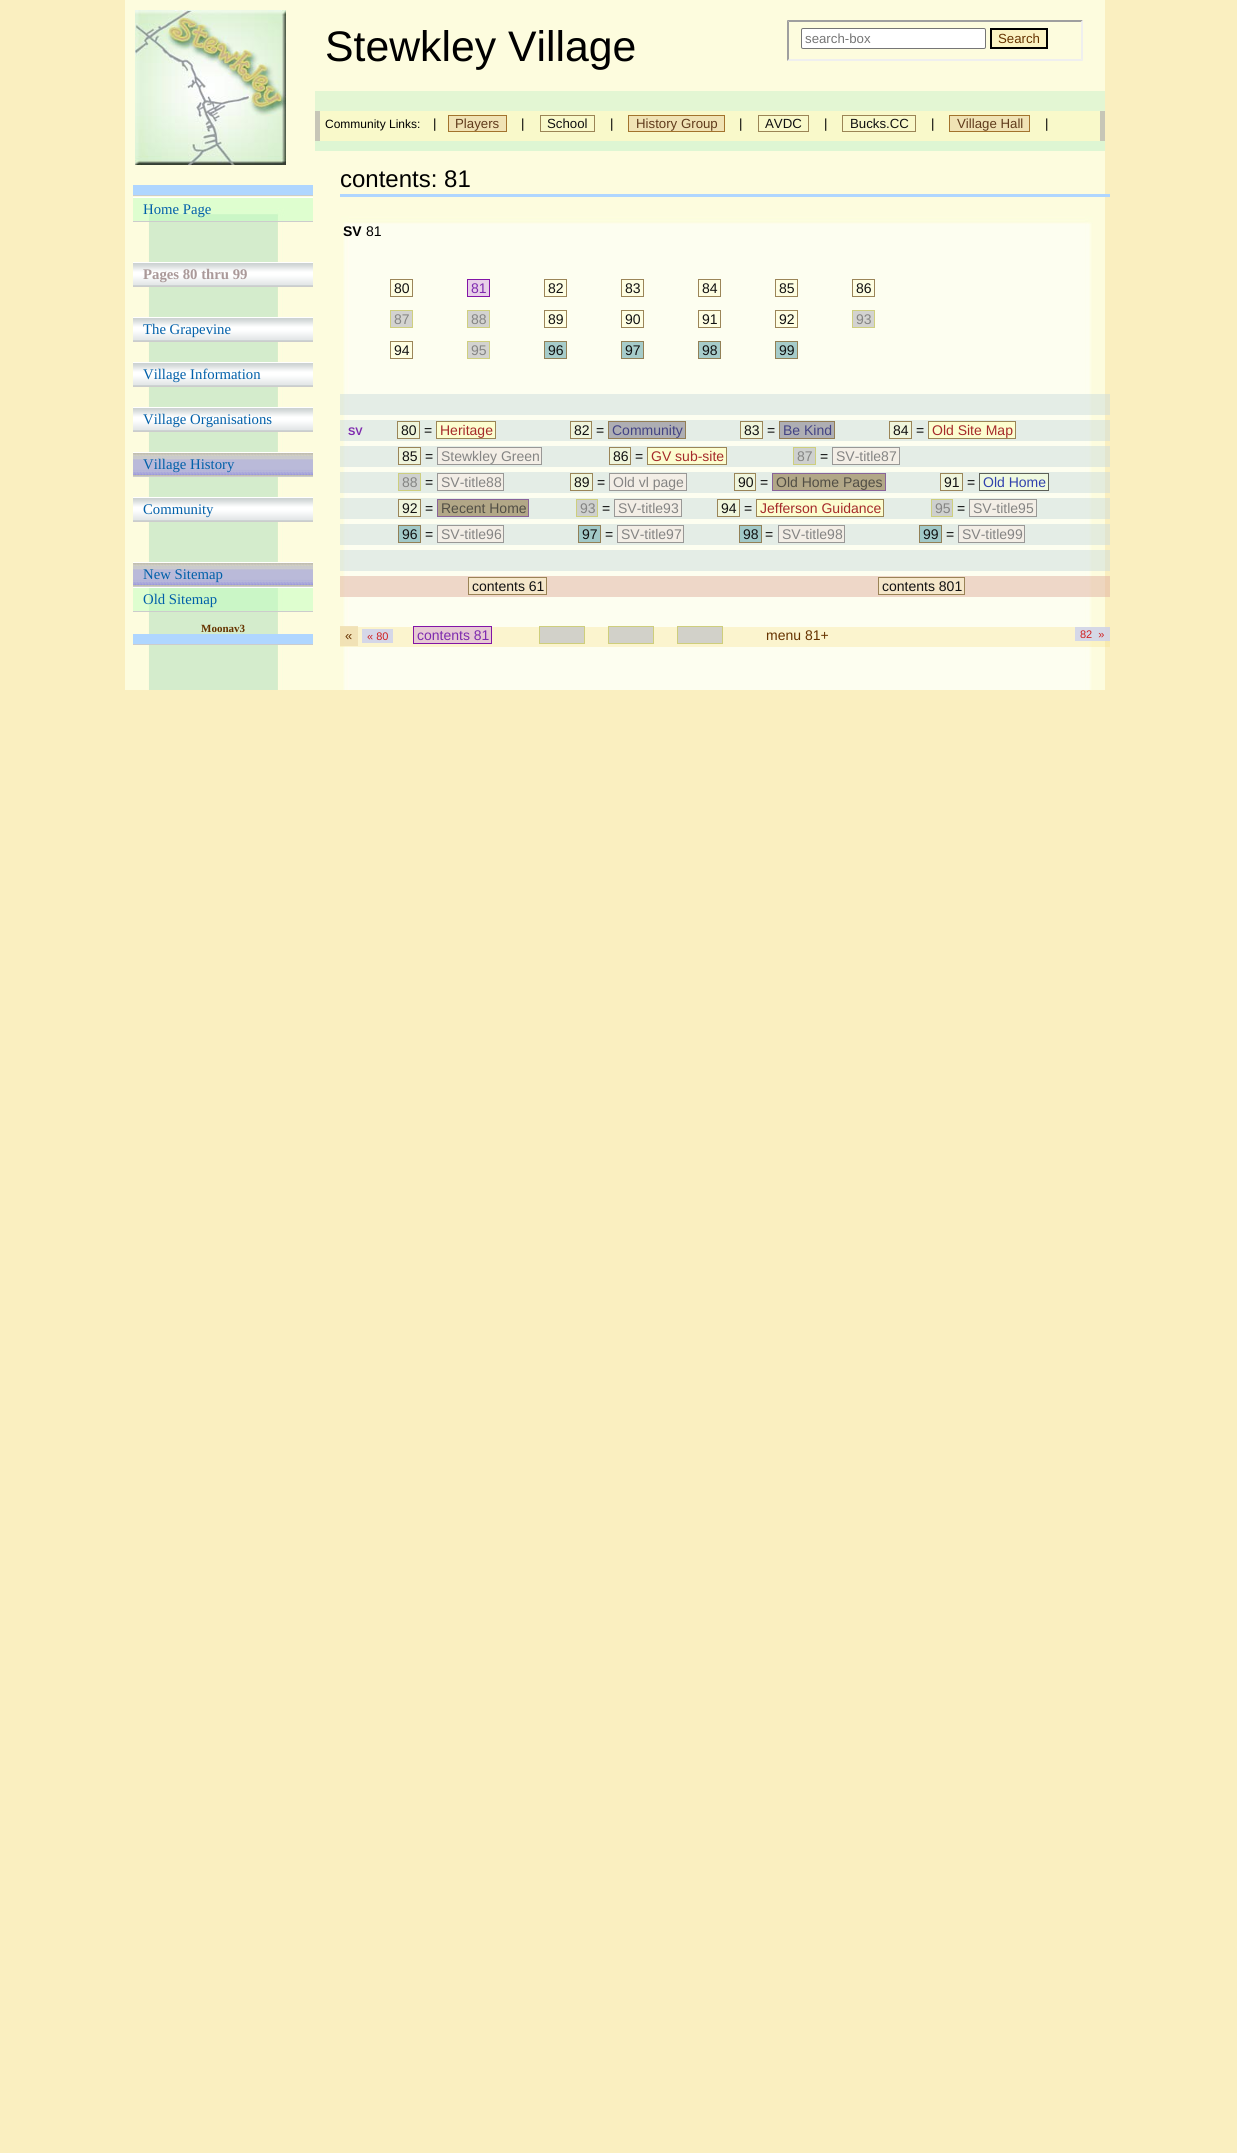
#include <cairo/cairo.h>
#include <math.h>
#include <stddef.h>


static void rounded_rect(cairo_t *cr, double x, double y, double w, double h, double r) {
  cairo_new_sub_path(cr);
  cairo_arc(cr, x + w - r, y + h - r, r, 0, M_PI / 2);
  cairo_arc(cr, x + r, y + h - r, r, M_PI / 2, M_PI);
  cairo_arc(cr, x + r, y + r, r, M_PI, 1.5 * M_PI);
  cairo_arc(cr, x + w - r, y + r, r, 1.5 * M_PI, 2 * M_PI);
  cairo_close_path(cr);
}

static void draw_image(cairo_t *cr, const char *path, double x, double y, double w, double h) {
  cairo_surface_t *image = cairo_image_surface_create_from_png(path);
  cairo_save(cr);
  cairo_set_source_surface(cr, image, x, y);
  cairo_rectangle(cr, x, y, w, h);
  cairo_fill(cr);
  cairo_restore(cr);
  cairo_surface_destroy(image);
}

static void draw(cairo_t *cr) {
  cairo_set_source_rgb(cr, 250 / 255.0, 239 / 255.0, 192 / 255.0);
  cairo_paint(cr);
  draw_image(cr, "images/1.png", 125, 0, 980, 690);
  draw_image(cr, "images/2.png", 135, 10, 151, 155);
  cairo_set_source_rgb(cr, 159 / 255.0, 159 / 255.0, 159 / 255.0);
  cairo_new_path(cr);
  cairo_move_to(cr, 787, 20);
  cairo_line_to(cr, 1083, 20);
  cairo_line_to(cr, 1081, 22);
  cairo_line_to(cr, 789, 22);
  cairo_close_path(cr);
  cairo_fill(cr);
  cairo_set_source_rgb(cr, 239 / 255.0, 239 / 255.0, 239 / 255.0);
  cairo_new_path(cr);
  cairo_move_to(cr, 1083, 20);
  cairo_line_to(cr, 1083, 61);
  cairo_line_to(cr, 1081, 59);
  cairo_line_to(cr, 1081, 22);
  cairo_close_path(cr);
  cairo_fill(cr);
  cairo_new_path(cr);
  cairo_move_to(cr, 1083, 61);
  cairo_line_to(cr, 787, 61);
  cairo_line_to(cr, 789, 59);
  cairo_line_to(cr, 1081, 59);
  cairo_close_path(cr);
  cairo_fill(cr);
  cairo_set_source_rgb(cr, 159 / 255.0, 159 / 255.0, 159 / 255.0);
  cairo_new_path(cr);
  cairo_move_to(cr, 787, 61);
  cairo_line_to(cr, 787, 20);
  cairo_line_to(cr, 789, 22);
  cairo_line_to(cr, 789, 59);
  cairo_close_path(cr);
  cairo_fill(cr);
  cairo_set_source_rgb(cr, 1, 1, 1);
  rounded_rect(cr, 801.5, 28.5, 184, 20, 1.5);
  cairo_fill_preserve(cr);
  cairo_set_source_rgb(cr, 118 / 255.0, 118 / 255.0, 118 / 255.0);
  cairo_set_line_width(cr, 1);
  cairo_stroke(cr);
  cairo_set_source_rgb(cr, 251 / 255.0, 243 / 255.0, 194 / 255.0);
  cairo_rectangle(cr, 991, 29, 56, 19);
  cairo_fill_preserve(cr);
  cairo_set_source_rgb(cr, 0, 0, 0);
  cairo_set_line_width(cr, 2);
  cairo_stroke(cr);
  cairo_set_source_rgb(cr, 227 / 255.0, 246 / 255.0, 211 / 255.0);
  cairo_rectangle(cr, 315, 91, 790, 20);
  cairo_fill(cr);
  cairo_set_source_rgb(cr, 199 / 255.0, 198 / 255.0, 183 / 255.0);
  cairo_rectangle(cr, 315, 111, 790, 30);
  cairo_fill(cr);
  cairo_set_source_rgb(cr, 249 / 255.0, 249 / 255.0, 202 / 255.0);
  cairo_rectangle(cr, 320, 111, 780, 30);
  cairo_fill(cr);
  cairo_set_source_rgb(cr, 240 / 255.0, 227 / 255.0, 181 / 255.0);
  cairo_rectangle(cr, 448.5, 115.5, 58, 16);
  cairo_fill_preserve(cr);
  cairo_set_source_rgb(cr, 162 / 255.0, 115 / 255.0, 45 / 255.0);
  cairo_set_line_width(cr, 1);
  cairo_stroke(cr);
  cairo_rectangle(cr, 540.5, 115.5, 54, 16);
  cairo_set_source_rgb(cr, 155 / 255.0, 133 / 255.0, 86 / 255.0);
  cairo_stroke(cr);
  cairo_set_source_rgb(cr, 240 / 255.0, 227 / 255.0, 181 / 255.0);
  cairo_rectangle(cr, 628.5, 115.5, 96, 16);
  cairo_fill_preserve(cr);
  cairo_set_source_rgb(cr, 162 / 255.0, 115 / 255.0, 45 / 255.0);
  cairo_stroke(cr);
  cairo_rectangle(cr, 758.5, 115.5, 50, 16);
  cairo_set_source_rgb(cr, 155 / 255.0, 133 / 255.0, 86 / 255.0);
  cairo_stroke(cr);
  cairo_rectangle(cr, 842.5, 115.5, 73, 16);
  cairo_stroke(cr);
  cairo_set_source_rgb(cr, 240 / 255.0, 227 / 255.0, 181 / 255.0);
  cairo_rectangle(cr, 949.5, 115.5, 80, 16);
  cairo_fill_preserve(cr);
  cairo_set_source_rgb(cr, 162 / 255.0, 115 / 255.0, 45 / 255.0);
  cairo_stroke(cr);
  cairo_set_source_rgb(cr, 222 / 255.0, 246 / 255.0, 211 / 255.0);
  cairo_rectangle(cr, 315, 141, 790, 10);
  cairo_fill(cr);
  cairo_set_source_rgb(cr, 175 / 255.0, 214 / 255.0, 1);
  cairo_rectangle(cr, 133, 185, 180, 10);
  cairo_fill(cr);
  cairo_set_source_rgb(cr, 204 / 255.0, 204 / 255.0, 204 / 255.0);
  cairo_rectangle(cr, 133, 195, 180, 1);
  cairo_fill(cr);
  cairo_set_source_rgba(cr, 192 / 255.0, 1, 192 / 255.0, 0.5);
  cairo_rectangle(cr, 133, 198, 180, 23);
  cairo_fill(cr);
  cairo_set_source_rgb(cr, 1, 1, 1);
  cairo_rectangle(cr, 133, 197, 180, 1);
  cairo_fill(cr);
  cairo_set_source_rgb(cr, 204 / 255.0, 204 / 255.0, 204 / 255.0);
  cairo_rectangle(cr, 133, 221, 180, 1);
  cairo_fill(cr);
  draw_image(cr, "images/3.png", 133, 263, 180, 23);
  cairo_set_source_rgb(cr, 1, 1, 1);
  cairo_rectangle(cr, 133, 262, 180, 1);
  cairo_fill(cr);
  cairo_set_source_rgb(cr, 204 / 255.0, 204 / 255.0, 204 / 255.0);
  cairo_rectangle(cr, 133, 286, 180, 1);
  cairo_fill(cr);
  draw_image(cr, "images/3.png", 133, 318, 180, 23);
  cairo_set_source_rgb(cr, 1, 1, 1);
  cairo_rectangle(cr, 133, 317, 180, 1);
  cairo_fill(cr);
  cairo_set_source_rgb(cr, 204 / 255.0, 204 / 255.0, 204 / 255.0);
  cairo_rectangle(cr, 133, 341, 180, 1);
  cairo_fill(cr);
  draw_image(cr, "images/3.png", 133, 363, 180, 23);
  cairo_set_source_rgb(cr, 1, 1, 1);
  cairo_rectangle(cr, 133, 362, 180, 1);
  cairo_fill(cr);
  cairo_set_source_rgb(cr, 204 / 255.0, 204 / 255.0, 204 / 255.0);
  cairo_rectangle(cr, 133, 386, 180, 1);
  cairo_fill(cr);
  draw_image(cr, "images/3.png", 133, 408, 180, 23);
  cairo_set_source_rgb(cr, 1, 1, 1);
  cairo_rectangle(cr, 133, 407, 180, 1);
  cairo_fill(cr);
  cairo_set_source_rgb(cr, 204 / 255.0, 204 / 255.0, 204 / 255.0);
  cairo_rectangle(cr, 133, 431, 180, 1);
  cairo_fill(cr);
  draw_image(cr, "images/4.png", 133, 453, 180, 23);
  cairo_set_source_rgb(cr, 1, 1, 1);
  cairo_rectangle(cr, 133, 452, 180, 1);
  cairo_fill(cr);
  cairo_set_source_rgb(cr, 204 / 255.0, 204 / 255.0, 204 / 255.0);
  cairo_rectangle(cr, 133, 476, 180, 1);
  cairo_fill(cr);
  draw_image(cr, "images/3.png", 133, 498, 180, 23);
  cairo_set_source_rgb(cr, 1, 1, 1);
  cairo_rectangle(cr, 133, 497, 180, 1);
  cairo_fill(cr);
  cairo_set_source_rgb(cr, 204 / 255.0, 204 / 255.0, 204 / 255.0);
  cairo_rectangle(cr, 133, 521, 180, 1);
  cairo_fill(cr);
  draw_image(cr, "images/4.png", 133, 563, 180, 23);
  cairo_set_source_rgb(cr, 1, 1, 1);
  cairo_rectangle(cr, 133, 562, 180, 1);
  cairo_fill(cr);
  cairo_set_source_rgb(cr, 204 / 255.0, 204 / 255.0, 204 / 255.0);
  cairo_rectangle(cr, 133, 586, 180, 1);
  cairo_fill(cr);
  cairo_set_source_rgba(cr, 192 / 255.0, 1, 192 / 255.0, 0.5);
  cairo_rectangle(cr, 133, 588, 180, 23);
  cairo_fill(cr);
  cairo_set_source_rgb(cr, 1, 1, 1);
  cairo_rectangle(cr, 133, 587, 180, 1);
  cairo_fill(cr);
  cairo_set_source_rgb(cr, 204 / 255.0, 204 / 255.0, 204 / 255.0);
  cairo_rectangle(cr, 133, 611, 180, 1);
  cairo_fill(cr);
  cairo_set_source_rgb(cr, 175 / 255.0, 214 / 255.0, 1);
  cairo_rectangle(cr, 133, 634, 180, 10);
  cairo_fill(cr);
  cairo_set_source_rgb(cr, 204 / 255.0, 204 / 255.0, 204 / 255.0);
  cairo_rectangle(cr, 133, 644, 180, 1);
  cairo_fill(cr);
  cairo_set_source_rgb(cr, 175 / 255.0, 214 / 255.0, 1);
  cairo_rectangle(cr, 340, 194, 770, 3);
  cairo_fill(cr);
  cairo_set_source_rgb(cr, 254 / 255.0, 254 / 255.0, 226 / 255.0);
  cairo_rectangle(cr, 390.5, 279.5, 22, 17);
  cairo_fill_preserve(cr);
  cairo_set_source_rgb(cr, 155 / 255.0, 133 / 255.0, 88 / 255.0);
  cairo_stroke(cr);
  cairo_set_source_rgb(cr, 232 / 255.0, 208 / 255.0, 232 / 255.0);
  cairo_rectangle(cr, 467.5, 279.5, 22, 17);
  cairo_fill_preserve(cr);
  cairo_set_source_rgb(cr, 131 / 255.0, 21 / 255.0, 167 / 255.0);
  cairo_stroke(cr);
  cairo_set_source_rgb(cr, 254 / 255.0, 254 / 255.0, 226 / 255.0);
  cairo_rectangle(cr, 544.5, 279.5, 22, 17);
  cairo_fill_preserve(cr);
  cairo_set_source_rgb(cr, 155 / 255.0, 133 / 255.0, 88 / 255.0);
  cairo_stroke(cr);
  cairo_set_source_rgb(cr, 254 / 255.0, 254 / 255.0, 226 / 255.0);
  cairo_rectangle(cr, 621.5, 279.5, 22, 17);
  cairo_fill_preserve(cr);
  cairo_set_source_rgb(cr, 155 / 255.0, 133 / 255.0, 88 / 255.0);
  cairo_stroke(cr);
  cairo_set_source_rgb(cr, 254 / 255.0, 254 / 255.0, 226 / 255.0);
  cairo_rectangle(cr, 698.5, 279.5, 22, 17);
  cairo_fill_preserve(cr);
  cairo_set_source_rgb(cr, 155 / 255.0, 133 / 255.0, 88 / 255.0);
  cairo_stroke(cr);
  cairo_set_source_rgb(cr, 254 / 255.0, 254 / 255.0, 226 / 255.0);
  cairo_rectangle(cr, 775.5, 279.5, 22, 17);
  cairo_fill_preserve(cr);
  cairo_set_source_rgb(cr, 155 / 255.0, 133 / 255.0, 88 / 255.0);
  cairo_stroke(cr);
  cairo_set_source_rgb(cr, 254 / 255.0, 254 / 255.0, 226 / 255.0);
  cairo_rectangle(cr, 852.5, 279.5, 22, 17);
  cairo_fill_preserve(cr);
  cairo_set_source_rgb(cr, 155 / 255.0, 133 / 255.0, 88 / 255.0);
  cairo_stroke(cr);
  cairo_set_source_rgb(cr, 211 / 255.0, 211 / 255.0, 208 / 255.0);
  cairo_rectangle(cr, 390.5, 310.5, 22, 17);
  cairo_fill_preserve(cr);
  cairo_set_source_rgb(cr, 207 / 255.0, 207 / 255.0, 127 / 255.0);
  cairo_stroke(cr);
  cairo_set_source_rgb(cr, 211 / 255.0, 211 / 255.0, 208 / 255.0);
  cairo_rectangle(cr, 467.5, 310.5, 22, 17);
  cairo_fill_preserve(cr);
  cairo_set_source_rgb(cr, 207 / 255.0, 207 / 255.0, 127 / 255.0);
  cairo_stroke(cr);
  cairo_set_source_rgb(cr, 254 / 255.0, 254 / 255.0, 226 / 255.0);
  cairo_rectangle(cr, 544.5, 310.5, 22, 17);
  cairo_fill_preserve(cr);
  cairo_set_source_rgb(cr, 155 / 255.0, 133 / 255.0, 88 / 255.0);
  cairo_stroke(cr);
  cairo_set_source_rgb(cr, 254 / 255.0, 254 / 255.0, 226 / 255.0);
  cairo_rectangle(cr, 621.5, 310.5, 22, 17);
  cairo_fill_preserve(cr);
  cairo_set_source_rgb(cr, 155 / 255.0, 133 / 255.0, 88 / 255.0);
  cairo_stroke(cr);
  cairo_set_source_rgb(cr, 254 / 255.0, 254 / 255.0, 226 / 255.0);
  cairo_rectangle(cr, 698.5, 310.5, 22, 17);
  cairo_fill_preserve(cr);
  cairo_set_source_rgb(cr, 155 / 255.0, 133 / 255.0, 88 / 255.0);
  cairo_stroke(cr);
  cairo_set_source_rgb(cr, 254 / 255.0, 254 / 255.0, 226 / 255.0);
  cairo_rectangle(cr, 775.5, 310.5, 22, 17);
  cairo_fill_preserve(cr);
  cairo_set_source_rgb(cr, 155 / 255.0, 133 / 255.0, 88 / 255.0);
  cairo_stroke(cr);
  cairo_set_source_rgb(cr, 211 / 255.0, 211 / 255.0, 208 / 255.0);
  cairo_rectangle(cr, 852.5, 310.5, 22, 17);
  cairo_fill_preserve(cr);
  cairo_set_source_rgb(cr, 207 / 255.0, 207 / 255.0, 127 / 255.0);
  cairo_stroke(cr);
  cairo_set_source_rgb(cr, 254 / 255.0, 254 / 255.0, 226 / 255.0);
  cairo_rectangle(cr, 390.5, 341.5, 22, 17);
  cairo_fill_preserve(cr);
  cairo_set_source_rgb(cr, 155 / 255.0, 133 / 255.0, 88 / 255.0);
  cairo_stroke(cr);
  cairo_set_source_rgb(cr, 211 / 255.0, 211 / 255.0, 208 / 255.0);
  cairo_rectangle(cr, 467.5, 341.5, 22, 17);
  cairo_fill_preserve(cr);
  cairo_set_source_rgb(cr, 207 / 255.0, 207 / 255.0, 127 / 255.0);
  cairo_stroke(cr);
  cairo_set_source_rgb(cr, 166 / 255.0, 204 / 255.0, 202 / 255.0);
  cairo_rectangle(cr, 544.5, 341.5, 22, 17);
  cairo_fill_preserve(cr);
  cairo_set_source_rgb(cr, 146 / 255.0, 128 / 255.0, 86 / 255.0);
  cairo_stroke(cr);
  cairo_set_source_rgb(cr, 166 / 255.0, 204 / 255.0, 202 / 255.0);
  cairo_rectangle(cr, 621.5, 341.5, 22, 17);
  cairo_fill_preserve(cr);
  cairo_set_source_rgb(cr, 146 / 255.0, 128 / 255.0, 86 / 255.0);
  cairo_stroke(cr);
  cairo_set_source_rgb(cr, 166 / 255.0, 204 / 255.0, 202 / 255.0);
  cairo_rectangle(cr, 698.5, 341.5, 22, 17);
  cairo_fill_preserve(cr);
  cairo_set_source_rgb(cr, 146 / 255.0, 128 / 255.0, 86 / 255.0);
  cairo_stroke(cr);
  cairo_set_source_rgb(cr, 166 / 255.0, 204 / 255.0, 202 / 255.0);
  cairo_rectangle(cr, 775.5, 341.5, 22, 17);
  cairo_fill_preserve(cr);
  cairo_set_source_rgb(cr, 146 / 255.0, 128 / 255.0, 86 / 255.0);
  cairo_stroke(cr);
  cairo_set_source_rgba(cr, 204 / 255.0, 221 / 255.0, 221 / 255.0, 0.5);
  cairo_rectangle(cr, 340, 394, 770, 21);
  cairo_fill(cr);
  cairo_rectangle(cr, 340, 420, 770, 21);
  cairo_fill(cr);
  cairo_set_source_rgb(cr, 239 / 255.0, 245 / 255.0, 220 / 255.0);
  cairo_rectangle(cr, 397.5, 421.5, 22, 17);
  cairo_fill_preserve(cr);
  cairo_set_source_rgb(cr, 154 / 255.0, 133 / 255.0, 88 / 255.0);
  cairo_stroke(cr);
  cairo_set_source_rgb(cr, 252 / 255.0, 253 / 255.0, 207 / 255.0);
  cairo_rectangle(cr, 436.5, 421.5, 59, 17);
  cairo_fill_preserve(cr);
  cairo_set_source_rgb(cr, 155 / 255.0, 133 / 255.0, 86 / 255.0);
  cairo_stroke(cr);
  cairo_set_source_rgb(cr, 239 / 255.0, 245 / 255.0, 220 / 255.0);
  cairo_rectangle(cr, 570.5, 421.5, 21, 17);
  cairo_fill_preserve(cr);
  cairo_set_source_rgb(cr, 154 / 255.0, 133 / 255.0, 88 / 255.0);
  cairo_stroke(cr);
  cairo_set_source_rgb(cr, 174 / 255.0, 174 / 255.0, 179 / 255.0);
  cairo_rectangle(cr, 608.5, 421.5, 77, 17);
  cairo_fill_preserve(cr);
  cairo_set_source_rgb(cr, 147 / 255.0, 125 / 255.0, 84 / 255.0);
  cairo_stroke(cr);
  cairo_set_source_rgb(cr, 239 / 255.0, 245 / 255.0, 220 / 255.0);
  cairo_rectangle(cr, 740.5, 421.5, 22, 17);
  cairo_fill_preserve(cr);
  cairo_set_source_rgb(cr, 154 / 255.0, 133 / 255.0, 88 / 255.0);
  cairo_stroke(cr);
  cairo_set_source_rgb(cr, 174 / 255.0, 174 / 255.0, 179 / 255.0);
  cairo_rectangle(cr, 779.5, 421.5, 55, 17);
  cairo_fill_preserve(cr);
  cairo_set_source_rgb(cr, 147 / 255.0, 125 / 255.0, 84 / 255.0);
  cairo_stroke(cr);
  cairo_set_source_rgb(cr, 239 / 255.0, 245 / 255.0, 220 / 255.0);
  cairo_rectangle(cr, 889.5, 421.5, 22, 17);
  cairo_fill_preserve(cr);
  cairo_set_source_rgb(cr, 154 / 255.0, 133 / 255.0, 88 / 255.0);
  cairo_stroke(cr);
  cairo_set_source_rgb(cr, 252 / 255.0, 253 / 255.0, 207 / 255.0);
  cairo_rectangle(cr, 928.5, 421.5, 87, 17);
  cairo_fill_preserve(cr);
  cairo_set_source_rgb(cr, 155 / 255.0, 133 / 255.0, 86 / 255.0);
  cairo_stroke(cr);
  cairo_set_source_rgba(cr, 204 / 255.0, 221 / 255.0, 221 / 255.0, 0.5);
  cairo_rectangle(cr, 340, 446, 770, 21);
  cairo_fill(cr);
  cairo_set_source_rgb(cr, 239 / 255.0, 245 / 255.0, 220 / 255.0);
  cairo_rectangle(cr, 398.5, 447.5, 22, 17);
  cairo_fill_preserve(cr);
  cairo_set_source_rgb(cr, 154 / 255.0, 133 / 255.0, 88 / 255.0);
  cairo_stroke(cr);
  cairo_set_source_rgb(cr, 243 / 255.0, 238 / 255.0, 230 / 255.0);
  cairo_rectangle(cr, 437.5, 447.5, 104, 17);
  cairo_fill_preserve(cr);
  cairo_set_source_rgb(cr, 153 / 255.0, 152 / 255.0, 150 / 255.0);
  cairo_stroke(cr);
  cairo_set_source_rgb(cr, 239 / 255.0, 245 / 255.0, 220 / 255.0);
  cairo_rectangle(cr, 609.5, 447.5, 21, 17);
  cairo_fill_preserve(cr);
  cairo_set_source_rgb(cr, 154 / 255.0, 133 / 255.0, 88 / 255.0);
  cairo_stroke(cr);
  cairo_set_source_rgb(cr, 252 / 255.0, 253 / 255.0, 207 / 255.0);
  cairo_rectangle(cr, 647.5, 447.5, 79, 17);
  cairo_fill_preserve(cr);
  cairo_set_source_rgb(cr, 155 / 255.0, 133 / 255.0, 86 / 255.0);
  cairo_stroke(cr);
  cairo_set_source_rgb(cr, 206 / 255.0, 208 / 255.0, 206 / 255.0);
  cairo_rectangle(cr, 793.5, 447.5, 22, 17);
  cairo_fill_preserve(cr);
  cairo_set_source_rgb(cr, 205 / 255.0, 206 / 255.0, 126 / 255.0);
  cairo_stroke(cr);
  cairo_set_source_rgb(cr, 243 / 255.0, 238 / 255.0, 230 / 255.0);
  cairo_rectangle(cr, 832.5, 447.5, 67, 17);
  cairo_fill_preserve(cr);
  cairo_set_source_rgb(cr, 153 / 255.0, 152 / 255.0, 150 / 255.0);
  cairo_stroke(cr);
  cairo_set_source_rgba(cr, 204 / 255.0, 221 / 255.0, 221 / 255.0, 0.5);
  cairo_rectangle(cr, 340, 472, 770, 21);
  cairo_fill(cr);
  cairo_set_source_rgb(cr, 206 / 255.0, 208 / 255.0, 206 / 255.0);
  cairo_rectangle(cr, 398.5, 473.5, 22, 17);
  cairo_fill_preserve(cr);
  cairo_set_source_rgb(cr, 205 / 255.0, 206 / 255.0, 126 / 255.0);
  cairo_stroke(cr);
  cairo_set_source_rgb(cr, 243 / 255.0, 238 / 255.0, 230 / 255.0);
  cairo_rectangle(cr, 437.5, 473.5, 66, 17);
  cairo_fill_preserve(cr);
  cairo_set_source_rgb(cr, 153 / 255.0, 152 / 255.0, 150 / 255.0);
  cairo_stroke(cr);
  cairo_set_source_rgb(cr, 239 / 255.0, 245 / 255.0, 220 / 255.0);
  cairo_rectangle(cr, 570.5, 473.5, 22, 17);
  cairo_fill_preserve(cr);
  cairo_set_source_rgb(cr, 154 / 255.0, 133 / 255.0, 88 / 255.0);
  cairo_stroke(cr);
  cairo_set_source_rgb(cr, 243 / 255.0, 238 / 255.0, 230 / 255.0);
  cairo_rectangle(cr, 609.5, 473.5, 77, 17);
  cairo_fill_preserve(cr);
  cairo_set_source_rgb(cr, 153 / 255.0, 152 / 255.0, 150 / 255.0);
  cairo_stroke(cr);
  cairo_set_source_rgb(cr, 239 / 255.0, 245 / 255.0, 220 / 255.0);
  cairo_rectangle(cr, 734.5, 473.5, 21, 17);
  cairo_fill_preserve(cr);
  cairo_set_source_rgb(cr, 154 / 255.0, 133 / 255.0, 88 / 255.0);
  cairo_stroke(cr);
  cairo_set_source_rgb(cr, 178 / 255.0, 167 / 255.0, 135 / 255.0);
  cairo_rectangle(cr, 772.5, 473.5, 113, 17);
  cairo_fill_preserve(cr);
  cairo_set_source_rgb(cr, 137 / 255.0, 99 / 255.0, 153 / 255.0);
  cairo_stroke(cr);
  cairo_set_source_rgb(cr, 239 / 255.0, 245 / 255.0, 220 / 255.0);
  cairo_rectangle(cr, 940.5, 473.5, 22, 17);
  cairo_fill_preserve(cr);
  cairo_set_source_rgb(cr, 154 / 255.0, 133 / 255.0, 88 / 255.0);
  cairo_stroke(cr);
  cairo_set_source_rgb(cr, 239 / 255.0, 249 / 255.0, 223 / 255.0);
  cairo_rectangle(cr, 979.5, 473.5, 69, 17);
  cairo_fill_preserve(cr);
  cairo_set_source_rgb(cr, 93 / 255.0, 96 / 255.0, 88 / 255.0);
  cairo_stroke(cr);
  cairo_set_source_rgba(cr, 204 / 255.0, 221 / 255.0, 221 / 255.0, 0.5);
  cairo_rectangle(cr, 340, 498, 770, 21);
  cairo_fill(cr);
  cairo_set_source_rgb(cr, 239 / 255.0, 245 / 255.0, 220 / 255.0);
  cairo_rectangle(cr, 398.5, 499.5, 22, 17);
  cairo_fill_preserve(cr);
  cairo_set_source_rgb(cr, 154 / 255.0, 133 / 255.0, 88 / 255.0);
  cairo_stroke(cr);
  cairo_set_source_rgb(cr, 178 / 255.0, 167 / 255.0, 135 / 255.0);
  cairo_rectangle(cr, 437.5, 499.5, 91, 17);
  cairo_fill_preserve(cr);
  cairo_set_source_rgb(cr, 137 / 255.0, 99 / 255.0, 153 / 255.0);
  cairo_stroke(cr);
  cairo_set_source_rgb(cr, 206 / 255.0, 208 / 255.0, 206 / 255.0);
  cairo_rectangle(cr, 576.5, 499.5, 21, 17);
  cairo_fill_preserve(cr);
  cairo_set_source_rgb(cr, 205 / 255.0, 206 / 255.0, 126 / 255.0);
  cairo_stroke(cr);
  cairo_set_source_rgb(cr, 243 / 255.0, 238 / 255.0, 230 / 255.0);
  cairo_rectangle(cr, 614.5, 499.5, 67, 17);
  cairo_fill_preserve(cr);
  cairo_set_source_rgb(cr, 153 / 255.0, 152 / 255.0, 150 / 255.0);
  cairo_stroke(cr);
  cairo_set_source_rgb(cr, 239 / 255.0, 245 / 255.0, 220 / 255.0);
  cairo_rectangle(cr, 717.5, 499.5, 22, 17);
  cairo_fill_preserve(cr);
  cairo_set_source_rgb(cr, 154 / 255.0, 133 / 255.0, 88 / 255.0);
  cairo_stroke(cr);
  cairo_set_source_rgb(cr, 252 / 255.0, 253 / 255.0, 207 / 255.0);
  cairo_rectangle(cr, 756.5, 499.5, 127, 17);
  cairo_fill_preserve(cr);
  cairo_set_source_rgb(cr, 155 / 255.0, 133 / 255.0, 86 / 255.0);
  cairo_stroke(cr);
  cairo_set_source_rgb(cr, 206 / 255.0, 208 / 255.0, 206 / 255.0);
  cairo_rectangle(cr, 931.5, 499.5, 21, 17);
  cairo_fill_preserve(cr);
  cairo_set_source_rgb(cr, 205 / 255.0, 206 / 255.0, 126 / 255.0);
  cairo_stroke(cr);
  cairo_set_source_rgb(cr, 243 / 255.0, 238 / 255.0, 230 / 255.0);
  cairo_rectangle(cr, 969.5, 499.5, 67, 17);
  cairo_fill_preserve(cr);
  cairo_set_source_rgb(cr, 153 / 255.0, 152 / 255.0, 150 / 255.0);
  cairo_stroke(cr);
  cairo_set_source_rgba(cr, 204 / 255.0, 221 / 255.0, 221 / 255.0, 0.5);
  cairo_rectangle(cr, 340, 524, 770, 21);
  cairo_fill(cr);
  cairo_set_source_rgb(cr, 161 / 255.0, 201 / 255.0, 200 / 255.0);
  cairo_rectangle(cr, 398.5, 525.5, 22, 17);
  cairo_fill_preserve(cr);
  cairo_set_source_rgb(cr, 146 / 255.0, 128 / 255.0, 86 / 255.0);
  cairo_stroke(cr);
  cairo_set_source_rgb(cr, 243 / 255.0, 238 / 255.0, 230 / 255.0);
  cairo_rectangle(cr, 437.5, 525.5, 66, 17);
  cairo_fill_preserve(cr);
  cairo_set_source_rgb(cr, 153 / 255.0, 152 / 255.0, 150 / 255.0);
  cairo_stroke(cr);
  cairo_set_source_rgb(cr, 161 / 255.0, 201 / 255.0, 200 / 255.0);
  cairo_rectangle(cr, 578.5, 525.5, 22, 17);
  cairo_fill_preserve(cr);
  cairo_set_source_rgb(cr, 146 / 255.0, 128 / 255.0, 86 / 255.0);
  cairo_stroke(cr);
  cairo_set_source_rgb(cr, 243 / 255.0, 238 / 255.0, 230 / 255.0);
  cairo_rectangle(cr, 617.5, 525.5, 66, 17);
  cairo_fill_preserve(cr);
  cairo_set_source_rgb(cr, 153 / 255.0, 152 / 255.0, 150 / 255.0);
  cairo_stroke(cr);
  cairo_set_source_rgb(cr, 161 / 255.0, 201 / 255.0, 200 / 255.0);
  cairo_rectangle(cr, 739.5, 525.5, 22, 17);
  cairo_fill_preserve(cr);
  cairo_set_source_rgb(cr, 146 / 255.0, 128 / 255.0, 86 / 255.0);
  cairo_stroke(cr);
  cairo_set_source_rgb(cr, 243 / 255.0, 238 / 255.0, 230 / 255.0);
  cairo_rectangle(cr, 778.5, 525.5, 66, 17);
  cairo_fill_preserve(cr);
  cairo_set_source_rgb(cr, 153 / 255.0, 152 / 255.0, 150 / 255.0);
  cairo_stroke(cr);
  cairo_set_source_rgb(cr, 161 / 255.0, 201 / 255.0, 200 / 255.0);
  cairo_rectangle(cr, 919.5, 525.5, 22, 17);
  cairo_fill_preserve(cr);
  cairo_set_source_rgb(cr, 146 / 255.0, 128 / 255.0, 86 / 255.0);
  cairo_stroke(cr);
  cairo_set_source_rgb(cr, 243 / 255.0, 238 / 255.0, 230 / 255.0);
  cairo_rectangle(cr, 958.5, 525.5, 66, 17);
  cairo_fill_preserve(cr);
  cairo_set_source_rgb(cr, 153 / 255.0, 152 / 255.0, 150 / 255.0);
  cairo_stroke(cr);
  cairo_set_source_rgba(cr, 204 / 255.0, 221 / 255.0, 221 / 255.0, 0.5);
  cairo_rectangle(cr, 340, 550, 770, 21);
  cairo_fill(cr);
  cairo_set_source_rgba(cr, 224 / 255.0, 176 / 255.0, 160 / 255.0, 0.5);
  cairo_rectangle(cr, 340, 576, 770, 21);
  cairo_fill(cr);
  cairo_set_source_rgb(cr, 245 / 255.0, 231 / 255.0, 202 / 255.0);
  cairo_rectangle(cr, 468.5, 577.5, 78, 17);
  cairo_fill_preserve(cr);
  cairo_set_source_rgb(cr, 154 / 255.0, 131 / 255.0, 86 / 255.0);
  cairo_stroke(cr);
  cairo_set_source_rgb(cr, 245 / 255.0, 231 / 255.0, 202 / 255.0);
  cairo_rectangle(cr, 878.5, 577.5, 86, 17);
  cairo_fill_preserve(cr);
  cairo_set_source_rgb(cr, 154 / 255.0, 131 / 255.0, 86 / 255.0);
  cairo_stroke(cr);
  cairo_set_source_rgba(cr, 245 / 255.0, 222 / 255.0, 128 / 255.0, 0.3);
  cairo_rectangle(cr, 340, 627, 770, 20);
  cairo_fill(cr);
  cairo_set_source_rgba(cr, 200 / 255.0, 200 / 255.0, 200 / 255.0, 0.8);
  cairo_rectangle(cr, 539, 626, 46, 18);
  cairo_fill(cr);
  cairo_rectangle(cr, 539.5, 626.5, 45, 17);
  cairo_set_source_rgba(cr, 204 / 255.0, 204 / 255.0, 73 / 255.0, 0.6);
  cairo_stroke(cr);
  cairo_set_source_rgba(cr, 200 / 255.0, 200 / 255.0, 200 / 255.0, 0.8);
  cairo_rectangle(cr, 608, 626, 46, 18);
  cairo_fill(cr);
  cairo_rectangle(cr, 608.5, 626.5, 45, 17);
  cairo_set_source_rgba(cr, 204 / 255.0, 204 / 255.0, 73 / 255.0, 0.6);
  cairo_stroke(cr);
  cairo_set_source_rgba(cr, 200 / 255.0, 200 / 255.0, 200 / 255.0, 0.8);
  cairo_rectangle(cr, 677, 626, 46, 18);
  cairo_fill(cr);
  cairo_set_source_rgba(cr, 238 / 255.0, 221 / 255.0, 176 / 255.0, 0.8);
  cairo_rectangle(cr, 340, 626, 18, 20);
  cairo_fill(cr);
  cairo_set_source_rgb(cr, 213 / 255.0, 215 / 255.0, 232 / 255.0);
  cairo_rectangle(cr, 362, 629, 31, 14);
  cairo_fill(cr);
  cairo_set_source_rgba(cr, 200 / 255.0, 140 / 255.0, 220 / 255.0, 0.4);
  cairo_rectangle(cr, 413, 626, 79, 18);
  cairo_fill(cr);
  cairo_rectangle(cr, 413.5, 626.5, 78, 17);
  cairo_set_source_rgba(cr, 120 / 255.0, 0, 160 / 255.0, 0.9);
  cairo_stroke(cr);
  cairo_rectangle(cr, 677.5, 626.5, 45, 17);
  cairo_set_source_rgba(cr, 204 / 255.0, 204 / 255.0, 73 / 255.0, 0.6);
  cairo_stroke(cr);
  cairo_set_source_rgba(cr, 204 / 255.0, 208 / 255.0, 238 / 255.0, 0.8);
  cairo_rectangle(cr, 1075, 627, 35, 14);
  cairo_fill(cr);
  cairo_select_font_face(cr, "Liberation Sans", CAIRO_FONT_SLANT_NORMAL, CAIRO_FONT_WEIGHT_NORMAL);
  cairo_set_font_size(cr, 42.75);
  cairo_set_source_rgb(cr, 0, 0, 0);
  cairo_move_to(cr, 325, 61);
  cairo_show_text(cr, "Stewkley Village");
  cairo_set_font_size(cr, 13.25);
  cairo_set_source_rgb(cr, 117 / 255.0, 117 / 255.0, 117 / 255.0);
  cairo_move_to(cr, 805, 43);
  cairo_show_text(cr, "search-box");
  cairo_set_source_rgb(cr, 102 / 255.0, 51 / 255.0, 0);
  cairo_move_to(cr, 998, 43);
  cairo_show_text(cr, "Search");
  cairo_set_font_size(cr, 12);
  cairo_set_source_rgb(cr, 0, 0, 0);
  cairo_move_to(cr, 325, 128);
  cairo_show_text(cr, "Community Links:");
  cairo_set_font_size(cr, 13.25);
  cairo_move_to(cr, 433, 128);
  cairo_show_text(cr, "|");
  cairo_set_source_rgb(cr, 96 / 255.0, 59 / 255.0, 27 / 255.0);
  cairo_move_to(cr, 455, 128);
  cairo_show_text(cr, "Players");
  cairo_set_source_rgb(cr, 0, 0, 0);
  cairo_move_to(cr, 521, 128);
  cairo_show_text(cr, "|");
  cairo_set_source_rgb(cr, 17 / 255.0, 17 / 255.0, 17 / 255.0);
  cairo_move_to(cr, 547, 128);
  cairo_show_text(cr, "School");
  cairo_set_source_rgb(cr, 0, 0, 0);
  cairo_move_to(cr, 610, 128);
  cairo_show_text(cr, "|");
  cairo_set_source_rgb(cr, 96 / 255.0, 59 / 255.0, 27 / 255.0);
  cairo_move_to(cr, 636, 128);
  cairo_show_text(cr, "History Group");
  cairo_set_source_rgb(cr, 0, 0, 0);
  cairo_move_to(cr, 739, 128);
  cairo_show_text(cr, "|");
  cairo_set_source_rgb(cr, 17 / 255.0, 17 / 255.0, 17 / 255.0);
  cairo_move_to(cr, 765, 128);
  cairo_show_text(cr, "AVDC");
  cairo_set_source_rgb(cr, 0, 0, 0);
  cairo_move_to(cr, 824, 128);
  cairo_show_text(cr, "|");
  cairo_set_source_rgb(cr, 17 / 255.0, 17 / 255.0, 17 / 255.0);
  cairo_move_to(cr, 850, 128);
  cairo_show_text(cr, "Bucks.CC");
  cairo_set_source_rgb(cr, 0, 0, 0);
  cairo_move_to(cr, 931, 128);
  cairo_show_text(cr, "|");
  cairo_set_source_rgb(cr, 96 / 255.0, 59 / 255.0, 27 / 255.0);
  cairo_move_to(cr, 957, 128);
  cairo_show_text(cr, "Village Hall");
  cairo_set_source_rgb(cr, 0, 0, 0);
  cairo_move_to(cr, 1045, 128);
  cairo_show_text(cr, "|");
  cairo_select_font_face(cr, "Liberation Serif", CAIRO_FONT_SLANT_NORMAL, CAIRO_FONT_WEIGHT_NORMAL);
  cairo_set_font_size(cr, 14.75);
  cairo_set_source_rgb(cr, 0, 95 / 255.0, 169 / 255.0);
  cairo_move_to(cr, 143, 214);
  cairo_show_text(cr, "Home Page");
  cairo_select_font_face(cr, "Liberation Serif", CAIRO_FONT_SLANT_NORMAL, CAIRO_FONT_WEIGHT_BOLD);
  cairo_set_source_rgb(cr, 170 / 255.0, 153 / 255.0, 153 / 255.0);
  cairo_move_to(cr, 143, 279);
  cairo_show_text(cr, "Pages 80 thru 99");
  cairo_select_font_face(cr, "Liberation Serif", CAIRO_FONT_SLANT_NORMAL, CAIRO_FONT_WEIGHT_NORMAL);
  cairo_set_source_rgb(cr, 0, 95 / 255.0, 169 / 255.0);
  cairo_move_to(cr, 143, 334);
  cairo_show_text(cr, "The Grapevine");
  cairo_move_to(cr, 143, 379);
  cairo_show_text(cr, "Village Information");
  cairo_move_to(cr, 143, 424);
  cairo_show_text(cr, "Village Organisations");
  cairo_move_to(cr, 143, 469);
  cairo_show_text(cr, "Village History");
  cairo_move_to(cr, 143, 514);
  cairo_show_text(cr, "Community");
  cairo_move_to(cr, 143, 579);
  cairo_show_text(cr, "New Sitemap");
  cairo_move_to(cr, 143, 604);
  cairo_show_text(cr, "Old Sitemap");
  cairo_select_font_face(cr, "Liberation Serif", CAIRO_FONT_SLANT_NORMAL, CAIRO_FONT_WEIGHT_BOLD);
  cairo_set_font_size(cr, 11);
  cairo_set_source_rgb(cr, 102 / 255.0, 51 / 255.0, 0);
  cairo_move_to(cr, 201, 632);
  cairo_show_text(cr, "Moonav3");
  cairo_select_font_face(cr, "Liberation Sans", CAIRO_FONT_SLANT_NORMAL, CAIRO_FONT_WEIGHT_NORMAL);
  cairo_set_font_size(cr, 24);
  cairo_set_source_rgb(cr, 0, 0, 0);
  cairo_move_to(cr, 340, 187);
  cairo_show_text(cr, "contents: 81");
  cairo_select_font_face(cr, "Liberation Sans", CAIRO_FONT_SLANT_NORMAL, CAIRO_FONT_WEIGHT_BOLD);
  cairo_set_font_size(cr, 14);
  cairo_move_to(cr, 343, 236);
  cairo_show_text(cr, "SV");
  cairo_select_font_face(cr, "Liberation Sans", CAIRO_FONT_SLANT_NORMAL, CAIRO_FONT_WEIGHT_NORMAL);
  cairo_move_to(cr, 366, 236);
  cairo_show_text(cr, "81");
  cairo_set_source_rgb(cr, 17 / 255.0, 17 / 255.0, 17 / 255.0);
  cairo_move_to(cr, 394, 293);
  cairo_show_text(cr, "80");
  cairo_set_source_rgb(cr, 126 / 255.0, 42 / 255.0, 174 / 255.0);
  cairo_move_to(cr, 471, 293);
  cairo_show_text(cr, "81");
  cairo_set_source_rgb(cr, 17 / 255.0, 17 / 255.0, 17 / 255.0);
  cairo_move_to(cr, 548, 293);
  cairo_show_text(cr, "82");
  cairo_move_to(cr, 625, 293);
  cairo_show_text(cr, "83");
  cairo_move_to(cr, 702, 293);
  cairo_show_text(cr, "84");
  cairo_move_to(cr, 779, 293);
  cairo_show_text(cr, "85");
  cairo_move_to(cr, 856, 293);
  cairo_show_text(cr, "86");
  cairo_set_source_rgb(cr, 132 / 255.0, 132 / 255.0, 131 / 255.0);
  cairo_move_to(cr, 394, 324);
  cairo_show_text(cr, "87");
  cairo_move_to(cr, 471, 324);
  cairo_show_text(cr, "88");
  cairo_set_source_rgb(cr, 17 / 255.0, 17 / 255.0, 17 / 255.0);
  cairo_move_to(cr, 548, 324);
  cairo_show_text(cr, "89");
  cairo_move_to(cr, 625, 324);
  cairo_show_text(cr, "90");
  cairo_move_to(cr, 702, 324);
  cairo_show_text(cr, "91");
  cairo_move_to(cr, 779, 324);
  cairo_show_text(cr, "92");
  cairo_set_source_rgb(cr, 132 / 255.0, 132 / 255.0, 131 / 255.0);
  cairo_move_to(cr, 856, 324);
  cairo_show_text(cr, "93");
  cairo_set_source_rgb(cr, 17 / 255.0, 17 / 255.0, 17 / 255.0);
  cairo_move_to(cr, 394, 355);
  cairo_show_text(cr, "94");
  cairo_set_source_rgb(cr, 132 / 255.0, 132 / 255.0, 131 / 255.0);
  cairo_move_to(cr, 471, 355);
  cairo_show_text(cr, "95");
  cairo_set_source_rgb(cr, 17 / 255.0, 17 / 255.0, 17 / 255.0);
  cairo_move_to(cr, 548, 355);
  cairo_show_text(cr, "96");
  cairo_move_to(cr, 625, 355);
  cairo_show_text(cr, "97");
  cairo_move_to(cr, 702, 355);
  cairo_show_text(cr, "98");
  cairo_move_to(cr, 779, 355);
  cairo_show_text(cr, "99");
  cairo_select_font_face(cr, "Liberation Sans", CAIRO_FONT_SLANT_NORMAL, CAIRO_FONT_WEIGHT_BOLD);
  cairo_set_font_size(cr, 11);
  cairo_set_source_rgb(cr, 126 / 255.0, 42 / 255.0, 174 / 255.0);
  cairo_move_to(cr, 348, 435);
  cairo_show_text(cr, "SV");
  cairo_select_font_face(cr, "Liberation Sans", CAIRO_FONT_SLANT_NORMAL, CAIRO_FONT_WEIGHT_NORMAL);
  cairo_set_font_size(cr, 14);
  cairo_set_source_rgb(cr, 17 / 255.0, 17 / 255.0, 17 / 255.0);
  cairo_move_to(cr, 401, 435);
  cairo_show_text(cr, "80");
  cairo_set_source_rgb(cr, 0, 0, 0);
  cairo_move_to(cr, 424, 435);
  cairo_show_text(cr, "=");
  cairo_set_source_rgb(cr, 165 / 255.0, 42 / 255.0, 42 / 255.0);
  cairo_move_to(cr, 440, 435);
  cairo_show_text(cr, "Heritage");
  cairo_set_source_rgb(cr, 17 / 255.0, 17 / 255.0, 17 / 255.0);
  cairo_move_to(cr, 574, 435);
  cairo_show_text(cr, "82");
  cairo_set_source_rgb(cr, 0, 0, 0);
  cairo_move_to(cr, 596, 435);
  cairo_show_text(cr, "=");
  cairo_set_source_rgb(cr, 67 / 255.0, 67 / 255.0, 132 / 255.0);
  cairo_move_to(cr, 612, 435);
  cairo_show_text(cr, "Community");
  cairo_set_source_rgb(cr, 17 / 255.0, 17 / 255.0, 17 / 255.0);
  cairo_move_to(cr, 744, 435);
  cairo_show_text(cr, "83");
  cairo_set_source_rgb(cr, 0, 0, 0);
  cairo_move_to(cr, 767, 435);
  cairo_show_text(cr, "=");
  cairo_set_source_rgb(cr, 67 / 255.0, 67 / 255.0, 132 / 255.0);
  cairo_move_to(cr, 783, 435);
  cairo_show_text(cr, "Be Kind");
  cairo_set_source_rgb(cr, 17 / 255.0, 17 / 255.0, 17 / 255.0);
  cairo_move_to(cr, 893, 435);
  cairo_show_text(cr, "84");
  cairo_set_source_rgb(cr, 0, 0, 0);
  cairo_move_to(cr, 916, 435);
  cairo_show_text(cr, "=");
  cairo_set_source_rgb(cr, 165 / 255.0, 42 / 255.0, 42 / 255.0);
  cairo_move_to(cr, 932, 435);
  cairo_show_text(cr, "Old Site Map");
  cairo_set_source_rgb(cr, 17 / 255.0, 17 / 255.0, 17 / 255.0);
  cairo_move_to(cr, 402, 461);
  cairo_show_text(cr, "85");
  cairo_set_source_rgb(cr, 0, 0, 0);
  cairo_move_to(cr, 425, 461);
  cairo_show_text(cr, "=");
  cairo_set_source_rgb(cr, 132 / 255.0, 132 / 255.0, 131 / 255.0);
  cairo_move_to(cr, 441, 461);
  cairo_show_text(cr, "Stewkley Green");
  cairo_set_source_rgb(cr, 17 / 255.0, 17 / 255.0, 17 / 255.0);
  cairo_move_to(cr, 613, 461);
  cairo_show_text(cr, "86");
  cairo_set_source_rgb(cr, 0, 0, 0);
  cairo_move_to(cr, 635, 461);
  cairo_show_text(cr, "=");
  cairo_set_source_rgb(cr, 165 / 255.0, 42 / 255.0, 42 / 255.0);
  cairo_move_to(cr, 651, 461);
  cairo_show_text(cr, "GV sub-site");
  cairo_set_source_rgb(cr, 132 / 255.0, 132 / 255.0, 131 / 255.0);
  cairo_move_to(cr, 797, 461);
  cairo_show_text(cr, "87");
  cairo_set_source_rgb(cr, 0, 0, 0);
  cairo_move_to(cr, 820, 461);
  cairo_show_text(cr, "=");
  cairo_set_source_rgb(cr, 132 / 255.0, 132 / 255.0, 131 / 255.0);
  cairo_move_to(cr, 836, 461);
  cairo_show_text(cr, "SV-title87");
  cairo_move_to(cr, 402, 487);
  cairo_show_text(cr, "88");
  cairo_set_source_rgb(cr, 0, 0, 0);
  cairo_move_to(cr, 425, 487);
  cairo_show_text(cr, "=");
  cairo_set_source_rgb(cr, 132 / 255.0, 132 / 255.0, 131 / 255.0);
  cairo_move_to(cr, 441, 487);
  cairo_show_text(cr, "SV-title88");
  cairo_set_source_rgb(cr, 17 / 255.0, 17 / 255.0, 17 / 255.0);
  cairo_move_to(cr, 574, 487);
  cairo_show_text(cr, "89");
  cairo_set_source_rgb(cr, 0, 0, 0);
  cairo_move_to(cr, 597, 487);
  cairo_show_text(cr, "=");
  cairo_set_source_rgb(cr, 132 / 255.0, 132 / 255.0, 131 / 255.0);
  cairo_move_to(cr, 613, 487);
  cairo_show_text(cr, "Old vl page");
  cairo_set_source_rgb(cr, 17 / 255.0, 17 / 255.0, 17 / 255.0);
  cairo_move_to(cr, 738, 487);
  cairo_show_text(cr, "90");
  cairo_set_source_rgb(cr, 0, 0, 0);
  cairo_move_to(cr, 760, 487);
  cairo_show_text(cr, "=");
  cairo_set_source_rgb(cr, 81 / 255.0, 78 / 255.0, 69 / 255.0);
  cairo_move_to(cr, 776, 487);
  cairo_show_text(cr, "Old Home Pages");
  cairo_set_source_rgb(cr, 17 / 255.0, 17 / 255.0, 17 / 255.0);
  cairo_move_to(cr, 944, 487);
  cairo_show_text(cr, "91");
  cairo_set_source_rgb(cr, 0, 0, 0);
  cairo_move_to(cr, 967, 487);
  cairo_show_text(cr, "=");
  cairo_set_source_rgb(cr, 48 / 255.0, 66 / 255.0, 173 / 255.0);
  cairo_move_to(cr, 983, 487);
  cairo_show_text(cr, "Old Home");
  cairo_set_source_rgb(cr, 17 / 255.0, 17 / 255.0, 17 / 255.0);
  cairo_move_to(cr, 402, 513);
  cairo_show_text(cr, "92");
  cairo_set_source_rgb(cr, 0, 0, 0);
  cairo_move_to(cr, 425, 513);
  cairo_show_text(cr, "=");
  cairo_set_source_rgb(cr, 81 / 255.0, 78 / 255.0, 69 / 255.0);
  cairo_move_to(cr, 441, 513);
  cairo_show_text(cr, "Recent Home");
  cairo_set_source_rgb(cr, 132 / 255.0, 132 / 255.0, 131 / 255.0);
  cairo_move_to(cr, 580, 513);
  cairo_show_text(cr, "93");
  cairo_set_source_rgb(cr, 0, 0, 0);
  cairo_move_to(cr, 602, 513);
  cairo_show_text(cr, "=");
  cairo_set_source_rgb(cr, 132 / 255.0, 132 / 255.0, 131 / 255.0);
  cairo_move_to(cr, 618, 513);
  cairo_show_text(cr, "SV-title93");
  cairo_set_source_rgb(cr, 17 / 255.0, 17 / 255.0, 17 / 255.0);
  cairo_move_to(cr, 721, 513);
  cairo_show_text(cr, "94");
  cairo_set_source_rgb(cr, 0, 0, 0);
  cairo_move_to(cr, 744, 513);
  cairo_show_text(cr, "=");
  cairo_set_source_rgb(cr, 165 / 255.0, 42 / 255.0, 42 / 255.0);
  cairo_move_to(cr, 760, 513);
  cairo_show_text(cr, "Jefferson Guidance");
  cairo_set_source_rgb(cr, 132 / 255.0, 132 / 255.0, 131 / 255.0);
  cairo_move_to(cr, 935, 513);
  cairo_show_text(cr, "95");
  cairo_set_source_rgb(cr, 0, 0, 0);
  cairo_move_to(cr, 957, 513);
  cairo_show_text(cr, "=");
  cairo_set_source_rgb(cr, 132 / 255.0, 132 / 255.0, 131 / 255.0);
  cairo_move_to(cr, 973, 513);
  cairo_show_text(cr, "SV-title95");
  cairo_set_source_rgb(cr, 17 / 255.0, 17 / 255.0, 17 / 255.0);
  cairo_move_to(cr, 402, 539);
  cairo_show_text(cr, "96");
  cairo_set_source_rgb(cr, 0, 0, 0);
  cairo_move_to(cr, 425, 539);
  cairo_show_text(cr, "=");
  cairo_set_source_rgb(cr, 132 / 255.0, 132 / 255.0, 131 / 255.0);
  cairo_move_to(cr, 441, 539);
  cairo_show_text(cr, "SV-title96");
  cairo_set_source_rgb(cr, 17 / 255.0, 17 / 255.0, 17 / 255.0);
  cairo_move_to(cr, 582, 539);
  cairo_show_text(cr, "97");
  cairo_set_source_rgb(cr, 0, 0, 0);
  cairo_move_to(cr, 605, 539);
  cairo_show_text(cr, "=");
  cairo_set_source_rgb(cr, 132 / 255.0, 132 / 255.0, 131 / 255.0);
  cairo_move_to(cr, 621, 539);
  cairo_show_text(cr, "SV-title97");
  cairo_set_source_rgb(cr, 17 / 255.0, 17 / 255.0, 17 / 255.0);
  cairo_move_to(cr, 743, 539);
  cairo_show_text(cr, "98");
  cairo_set_source_rgb(cr, 0, 0, 0);
  cairo_move_to(cr, 765, 539);
  cairo_show_text(cr, "=");
  cairo_set_source_rgb(cr, 132 / 255.0, 132 / 255.0, 131 / 255.0);
  cairo_move_to(cr, 782, 539);
  cairo_show_text(cr, "SV-title98");
  cairo_set_source_rgb(cr, 17 / 255.0, 17 / 255.0, 17 / 255.0);
  cairo_move_to(cr, 923, 539);
  cairo_show_text(cr, "99");
  cairo_set_source_rgb(cr, 0, 0, 0);
  cairo_move_to(cr, 946, 539);
  cairo_show_text(cr, "=");
  cairo_set_source_rgb(cr, 132 / 255.0, 132 / 255.0, 131 / 255.0);
  cairo_move_to(cr, 962, 539);
  cairo_show_text(cr, "SV-title99");
  cairo_set_source_rgb(cr, 17 / 255.0, 17 / 255.0, 17 / 255.0);
  cairo_move_to(cr, 472, 591);
  cairo_show_text(cr, "contents 61");
  cairo_move_to(cr, 882, 591);
  cairo_show_text(cr, "contents 801");
  cairo_set_font_size(cr, 13);
  cairo_set_source_rgb(cr, 102 / 255.0, 51 / 255.0, 0);
  cairo_move_to(cr, 345, 640);
  cairo_show_text(cr, "«");
  cairo_set_font_size(cr, 11);
  cairo_set_source_rgb(cr, 208 / 255.0, 32 / 255.0, 32 / 255.0);
  cairo_move_to(cr, 367, 640);
  cairo_show_text(cr, "« 80");
  cairo_set_font_size(cr, 14);
  cairo_set_source_rgb(cr, 126 / 255.0, 42 / 255.0, 174 / 255.0);
  cairo_move_to(cr, 417, 640);
  cairo_show_text(cr, "contents 81");
  cairo_set_source_rgb(cr, 102 / 255.0, 51 / 255.0, 0);
  cairo_move_to(cr, 766, 640);
  cairo_show_text(cr, "menu 81+");
  cairo_set_font_size(cr, 11);
  cairo_set_source_rgb(cr, 208 / 255.0, 32 / 255.0, 32 / 255.0);
  cairo_move_to(cr, 1080, 638);
  cairo_show_text(cr, "82  »");
}

int main(void) {
  cairo_surface_t *surface = cairo_image_surface_create(CAIRO_FORMAT_RGB24, 1237, 2153);
  cairo_t *cr = cairo_create(surface);
  cairo_font_options_t *options = cairo_font_options_create();
  cairo_font_options_set_hint_metrics(options, CAIRO_HINT_METRICS_OFF);
  cairo_font_options_set_hint_style(options, CAIRO_HINT_STYLE_NONE);
  cairo_set_font_options(cr, options);
  cairo_set_miter_limit(cr, 4);
  draw(cr);
  cairo_surface_write_to_png(surface, "out.png");
  cairo_font_options_destroy(options);
  cairo_destroy(cr);
  cairo_surface_destroy(surface);
  return 0;
}
